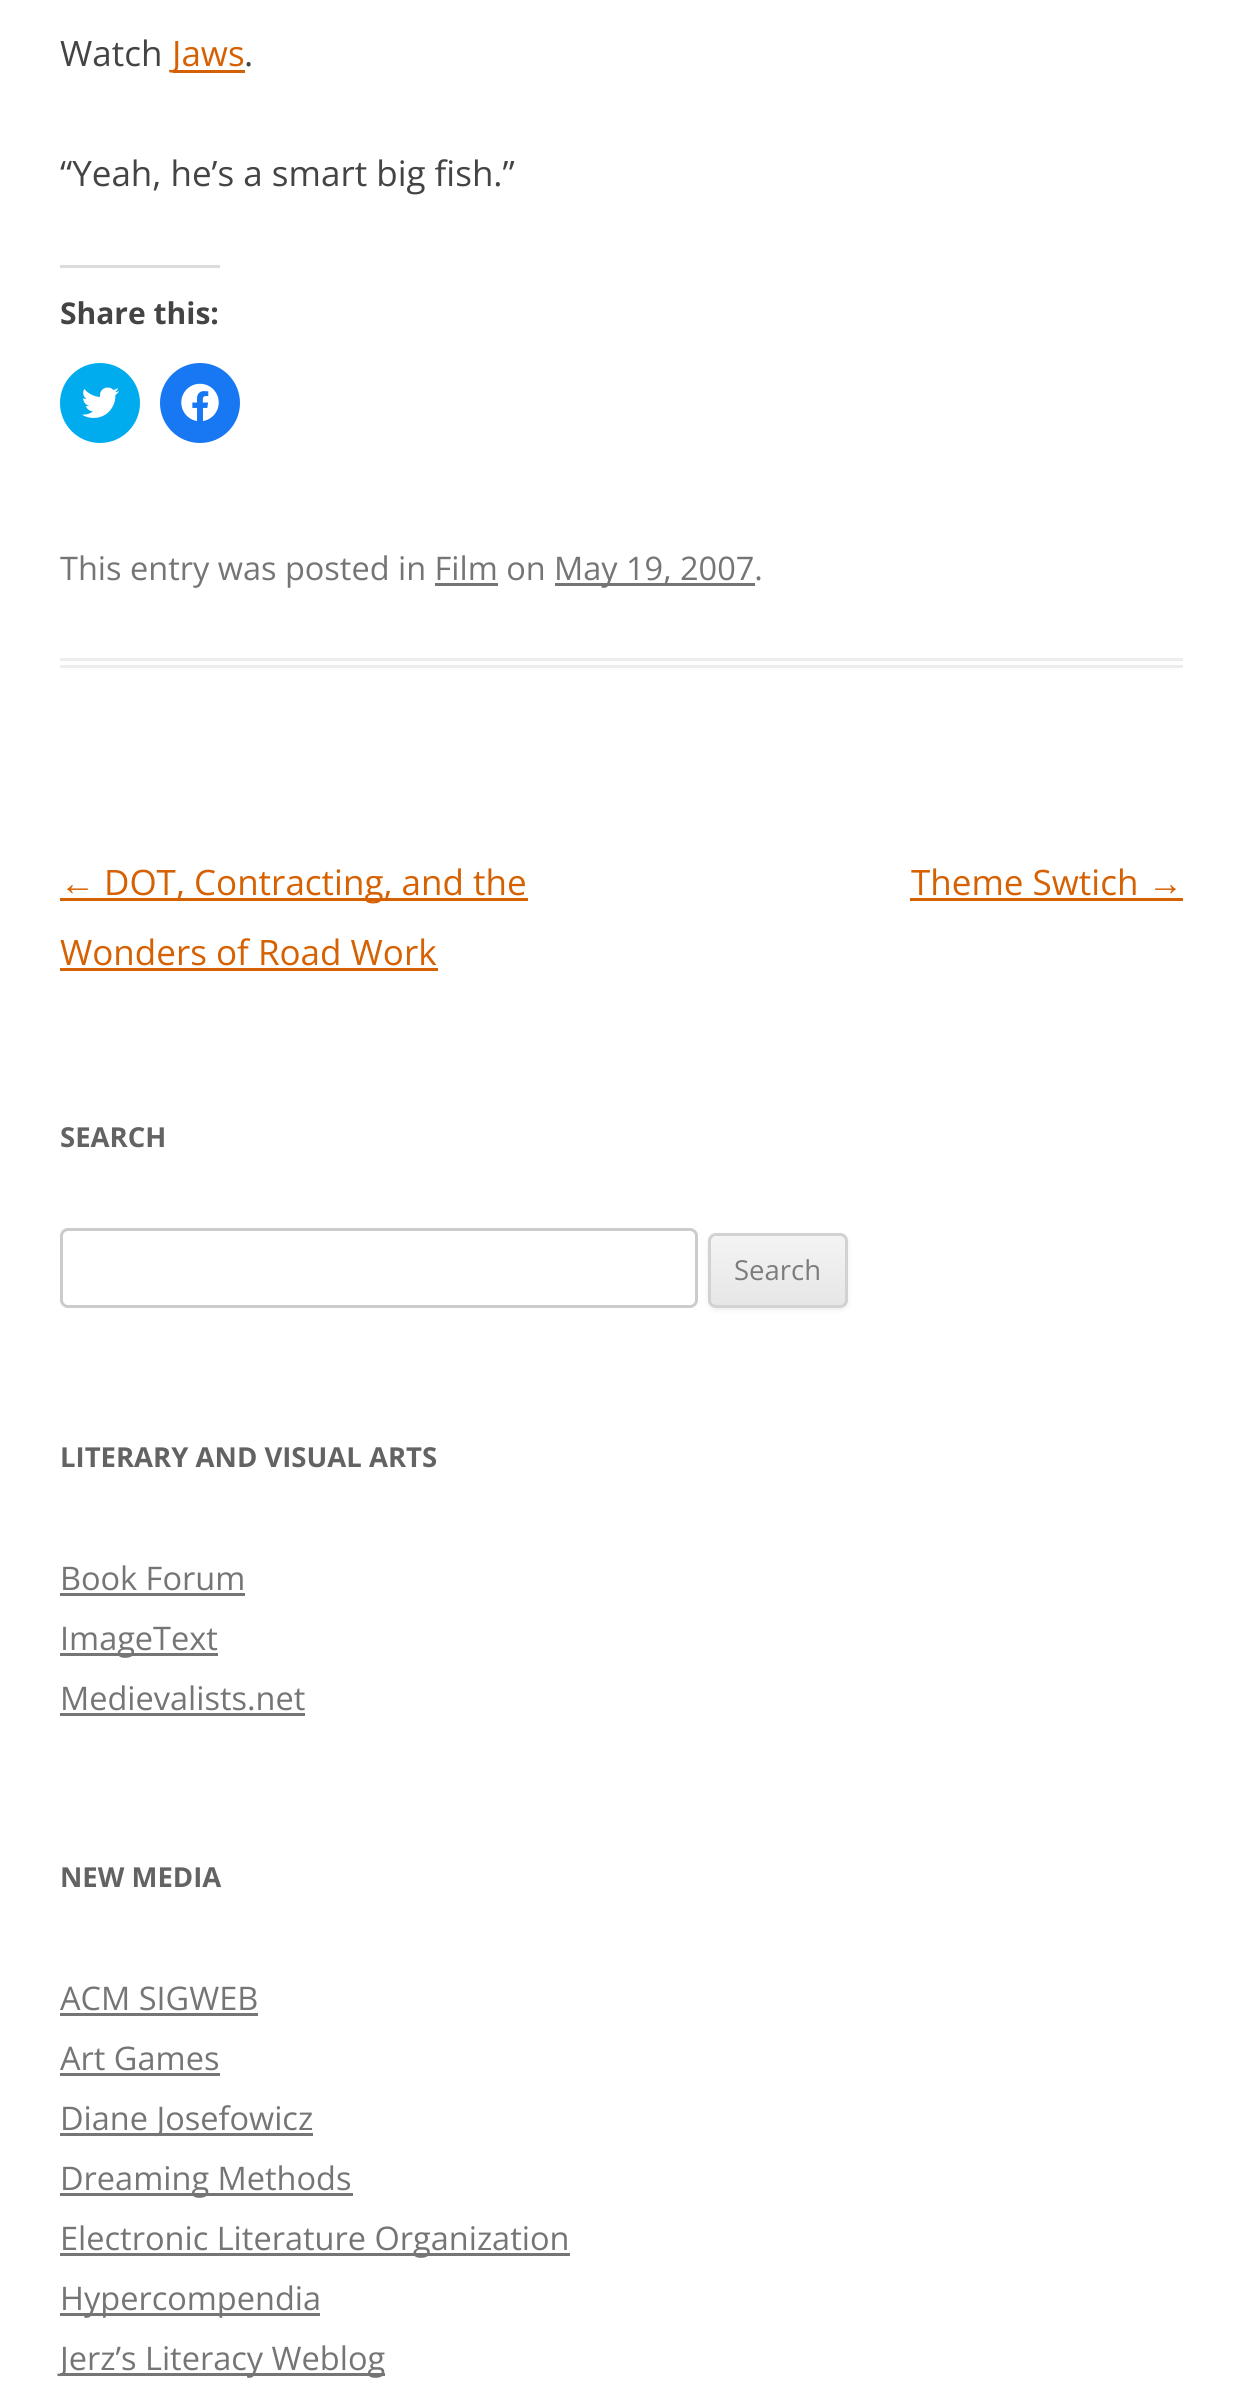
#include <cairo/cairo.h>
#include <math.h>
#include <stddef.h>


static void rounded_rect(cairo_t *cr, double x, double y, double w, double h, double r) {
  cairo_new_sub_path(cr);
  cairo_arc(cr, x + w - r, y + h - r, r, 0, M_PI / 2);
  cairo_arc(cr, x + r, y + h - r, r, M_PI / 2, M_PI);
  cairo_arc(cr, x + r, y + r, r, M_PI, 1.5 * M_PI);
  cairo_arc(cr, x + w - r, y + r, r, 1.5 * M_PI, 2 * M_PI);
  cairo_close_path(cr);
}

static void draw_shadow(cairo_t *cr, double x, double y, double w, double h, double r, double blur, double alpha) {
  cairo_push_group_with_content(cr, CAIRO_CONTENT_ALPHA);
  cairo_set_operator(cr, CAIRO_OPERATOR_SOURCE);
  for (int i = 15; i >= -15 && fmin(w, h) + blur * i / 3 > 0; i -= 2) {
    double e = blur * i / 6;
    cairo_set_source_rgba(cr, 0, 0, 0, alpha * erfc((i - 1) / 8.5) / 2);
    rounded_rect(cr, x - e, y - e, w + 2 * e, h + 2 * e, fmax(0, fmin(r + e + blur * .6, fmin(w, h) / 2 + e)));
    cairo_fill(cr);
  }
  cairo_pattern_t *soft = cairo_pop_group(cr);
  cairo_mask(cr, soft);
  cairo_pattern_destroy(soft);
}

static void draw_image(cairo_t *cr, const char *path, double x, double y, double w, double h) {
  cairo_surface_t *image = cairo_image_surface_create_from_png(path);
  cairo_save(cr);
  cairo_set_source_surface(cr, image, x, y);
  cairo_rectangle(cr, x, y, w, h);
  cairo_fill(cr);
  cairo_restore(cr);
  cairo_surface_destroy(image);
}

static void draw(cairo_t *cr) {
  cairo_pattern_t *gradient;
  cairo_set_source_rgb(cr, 1, 1, 1);
  cairo_paint(cr);
  cairo_set_source_rgb(cr, 237 / 255.0, 237 / 255.0, 237 / 255.0);
  cairo_rectangle(cr, 60, 658, 1123, 3);
  cairo_fill(cr);
  cairo_rectangle(cr, 60, 665, 1123, 3);
  cairo_fill(cr);
  cairo_set_source_rgb(cr, 214 / 255.0, 97 / 255.0, 2 / 255.0);
  cairo_rectangle(cr, 173, 70, 72, 3);
  cairo_fill(cr);
  cairo_set_source_rgb(cr, 220 / 255.0, 220 / 255.0, 222 / 255.0);
  cairo_rectangle(cr, 60, 265, 160, 3);
  cairo_fill(cr);
  cairo_set_source_rgb(cr, 0, 172 / 255.0, 238 / 255.0);
  cairo_arc(cr, 100, 403, 40, 0, 2 * M_PI);
  cairo_fill(cr);
  draw_image(cr, "images/1.png", 81, 387, 38, 31);
  cairo_set_source_rgb(cr, 24 / 255.0, 119 / 255.0, 242 / 255.0);
  cairo_arc(cr, 200, 403, 40, 0, 2 * M_PI);
  cairo_fill(cr);
  draw_image(cr, "images/2.png", 181, 383, 38, 38);
  cairo_set_source_rgb(cr, 117 / 255.0, 117 / 255.0, 117 / 255.0);
  cairo_rectangle(cr, 555, 583, 200, 3);
  cairo_fill(cr);
  cairo_rectangle(cr, 435, 583, 63, 3);
  cairo_fill(cr);
  cairo_set_source_rgb(cr, 214 / 255.0, 97 / 255.0, 2 / 255.0);
  cairo_rectangle(cr, 60, 898, 468, 3);
  cairo_fill(cr);
  cairo_rectangle(cr, 60, 968, 378, 3);
  cairo_fill(cr);
  cairo_rectangle(cr, 910, 898, 273, 3);
  cairo_fill(cr);
  rounded_rect(cr, 61.5, 1229.5, 635, 77, 6.5);
  cairo_set_source_rgb(cr, 204 / 255.0, 204 / 255.0, 204 / 255.0);
  cairo_set_line_width(cr, 3);
  cairo_stroke(cr);
  cairo_set_source_rgb(cr, 64 / 255.0, 64 / 255.0, 64 / 255.0);
  draw_shadow(cr, 708, 1235, 140, 75, 8, 2.5, 0.1);
  cairo_save(cr);
  rounded_rect(cr, 708, 1233, 140, 75, 8);
  cairo_clip(cr);
  gradient = cairo_pattern_create_linear(778, 1235, 778, 1305);
  cairo_pattern_add_color_stop_rgba(gradient, 0, 244 / 255.0, 244 / 255.0, 244 / 255.0, 1);
  cairo_pattern_add_color_stop_rgba(gradient, 1, 230 / 255.0, 230 / 255.0, 230 / 255.0, 1);
  cairo_set_source(cr, gradient);
  cairo_pattern_destroy(gradient);
  cairo_rectangle(cr, 708, 1235, 140, 70);
  cairo_fill(cr);
  cairo_restore(cr);
  rounded_rect(cr, 709.5, 1234.5, 137, 72, 6.5);
  cairo_set_source_rgb(cr, 210 / 255.0, 210 / 255.0, 210 / 255.0);
  cairo_stroke(cr);
  cairo_set_source_rgb(cr, 117 / 255.0, 117 / 255.0, 117 / 255.0);
  cairo_rectangle(cr, 60, 1593, 185, 3);
  cairo_fill(cr);
  cairo_rectangle(cr, 60, 1653, 158, 3);
  cairo_fill(cr);
  cairo_rectangle(cr, 60, 1713, 245, 3);
  cairo_fill(cr);
  cairo_rectangle(cr, 60, 2013, 198, 3);
  cairo_fill(cr);
  cairo_rectangle(cr, 60, 2073, 160, 3);
  cairo_fill(cr);
  cairo_rectangle(cr, 60, 2133, 253, 3);
  cairo_fill(cr);
  cairo_rectangle(cr, 60, 2193, 293, 3);
  cairo_fill(cr);
  cairo_rectangle(cr, 60, 2253, 510, 3);
  cairo_fill(cr);
  cairo_rectangle(cr, 60, 2313, 260, 3);
  cairo_fill(cr);
  cairo_rectangle(cr, 60, 2373, 325, 3);
  cairo_fill(cr);
  cairo_select_font_face(cr, "Open Sans", CAIRO_FONT_SLANT_NORMAL, CAIRO_FONT_WEIGHT_NORMAL);
  cairo_set_font_size(cr, 35);
  cairo_set_source_rgb(cr, 68 / 255.0, 68 / 255.0, 68 / 255.0);
  cairo_move_to(cr, 60, 66);
  cairo_show_text(cr, "Watch");
  cairo_set_source_rgb(cr, 214 / 255.0, 97 / 255.0, 2 / 255.0);
  cairo_move_to(cr, 172, 66);
  cairo_show_text(cr, "Jaws");
  cairo_set_source_rgb(cr, 68 / 255.0, 68 / 255.0, 68 / 255.0);
  cairo_move_to(cr, 244, 66);
  cairo_show_text(cr, ".");
  cairo_move_to(cr, 60, 186);
  cairo_show_text(cr, "“Yeah, he’s a smart big fish.”");
  cairo_select_font_face(cr, "Open Sans", CAIRO_FONT_SLANT_NORMAL, CAIRO_FONT_WEIGHT_BOLD);
  cairo_set_font_size(cr, 30);
  cairo_move_to(cr, 60, 324);
  cairo_show_text(cr, "Share this:");
  cairo_select_font_face(cr, "Open Sans", CAIRO_FONT_SLANT_NORMAL, CAIRO_FONT_WEIGHT_NORMAL);
  cairo_set_font_size(cr, 32.5);
  cairo_set_source_rgb(cr, 117 / 255.0, 117 / 255.0, 117 / 255.0);
  cairo_move_to(cr, 60, 580);
  cairo_show_text(cr, "This entry was posted in Film on");
  cairo_move_to(cr, 554, 580);
  cairo_show_text(cr, "May 19, 2007.");
  cairo_select_font_face(cr, "Liberation Sans", CAIRO_FONT_SLANT_NORMAL, CAIRO_FONT_WEIGHT_NORMAL);
  cairo_set_font_size(cr, 35);
  cairo_set_source_rgb(cr, 214 / 255.0, 97 / 255.0, 2 / 255.0);
  cairo_move_to(cr, 60, 895);
  cairo_show_text(cr, "←");
  cairo_select_font_face(cr, "Open Sans", CAIRO_FONT_SLANT_NORMAL, CAIRO_FONT_WEIGHT_NORMAL);
  cairo_move_to(cr, 104, 895);
  cairo_show_text(cr, "DOT, Contracting, and the");
  cairo_move_to(cr, 60, 965);
  cairo_show_text(cr, "Wonders of Road Work");
  cairo_move_to(cr, 911, 895);
  cairo_show_text(cr, "Theme Swtich");
  cairo_select_font_face(cr, "Liberation Sans", CAIRO_FONT_SLANT_NORMAL, CAIRO_FONT_WEIGHT_NORMAL);
  cairo_move_to(cr, 1148, 895);
  cairo_show_text(cr, "→");
  cairo_select_font_face(cr, "Open Sans", CAIRO_FONT_SLANT_NORMAL, CAIRO_FONT_WEIGHT_BOLD);
  cairo_set_font_size(cr, 27.5);
  cairo_set_source_rgb(cr, 99 / 255.0, 99 / 255.0, 99 / 255.0);
  cairo_move_to(cr, 60, 1147);
  cairo_show_text(cr, "SEARCH");
  cairo_select_font_face(cr, "Open Sans", CAIRO_FONT_SLANT_NORMAL, CAIRO_FONT_WEIGHT_NORMAL);
  cairo_set_source_rgb(cr, 124 / 255.0, 124 / 255.0, 124 / 255.0);
  cairo_move_to(cr, 734, 1280);
  cairo_show_text(cr, "Search");
  cairo_select_font_face(cr, "Open Sans", CAIRO_FONT_SLANT_NORMAL, CAIRO_FONT_WEIGHT_BOLD);
  cairo_set_source_rgb(cr, 99 / 255.0, 99 / 255.0, 99 / 255.0);
  cairo_move_to(cr, 60, 1467);
  cairo_show_text(cr, "LITERARY AND VISUAL ARTS");
  cairo_select_font_face(cr, "Open Sans", CAIRO_FONT_SLANT_NORMAL, CAIRO_FONT_WEIGHT_NORMAL);
  cairo_set_font_size(cr, 32.5);
  cairo_set_source_rgb(cr, 117 / 255.0, 117 / 255.0, 117 / 255.0);
  cairo_move_to(cr, 60, 1590);
  cairo_show_text(cr, "Book Forum");
  cairo_move_to(cr, 60, 1650);
  cairo_show_text(cr, "ImageText");
  cairo_move_to(cr, 60, 1710);
  cairo_show_text(cr, "Medievalists.net");
  cairo_select_font_face(cr, "Open Sans", CAIRO_FONT_SLANT_NORMAL, CAIRO_FONT_WEIGHT_BOLD);
  cairo_set_font_size(cr, 27.5);
  cairo_set_source_rgb(cr, 99 / 255.0, 99 / 255.0, 99 / 255.0);
  cairo_move_to(cr, 60, 1887);
  cairo_show_text(cr, "NEW MEDIA");
  cairo_select_font_face(cr, "Open Sans", CAIRO_FONT_SLANT_NORMAL, CAIRO_FONT_WEIGHT_NORMAL);
  cairo_set_font_size(cr, 32.5);
  cairo_set_source_rgb(cr, 117 / 255.0, 117 / 255.0, 117 / 255.0);
  cairo_move_to(cr, 60, 2010);
  cairo_show_text(cr, "ACM SIGWEB");
  cairo_move_to(cr, 60, 2070);
  cairo_show_text(cr, "Art Games");
  cairo_move_to(cr, 60, 2130);
  cairo_show_text(cr, "Diane Josefowicz");
  cairo_move_to(cr, 60, 2190);
  cairo_show_text(cr, "Dreaming Methods");
  cairo_move_to(cr, 60, 2250);
  cairo_show_text(cr, "Electronic Literature Organization");
  cairo_move_to(cr, 60, 2310);
  cairo_show_text(cr, "Hypercompendia");
  cairo_move_to(cr, 60, 2370);
  cairo_show_text(cr, "Jerz’s Literacy Weblog");
}

int main(void) {
  cairo_surface_t *surface = cairo_image_surface_create(CAIRO_FORMAT_RGB24, 1242, 2404);
  cairo_t *cr = cairo_create(surface);
  cairo_font_options_t *options = cairo_font_options_create();
  cairo_font_options_set_hint_metrics(options, CAIRO_HINT_METRICS_OFF);
  cairo_font_options_set_hint_style(options, CAIRO_HINT_STYLE_NONE);
  cairo_set_font_options(cr, options);
  cairo_set_miter_limit(cr, 4);
  draw(cr);
  cairo_surface_write_to_png(surface, "out.png");
  cairo_font_options_destroy(options);
  cairo_destroy(cr);
  cairo_surface_destroy(surface);
  return 0;
}
